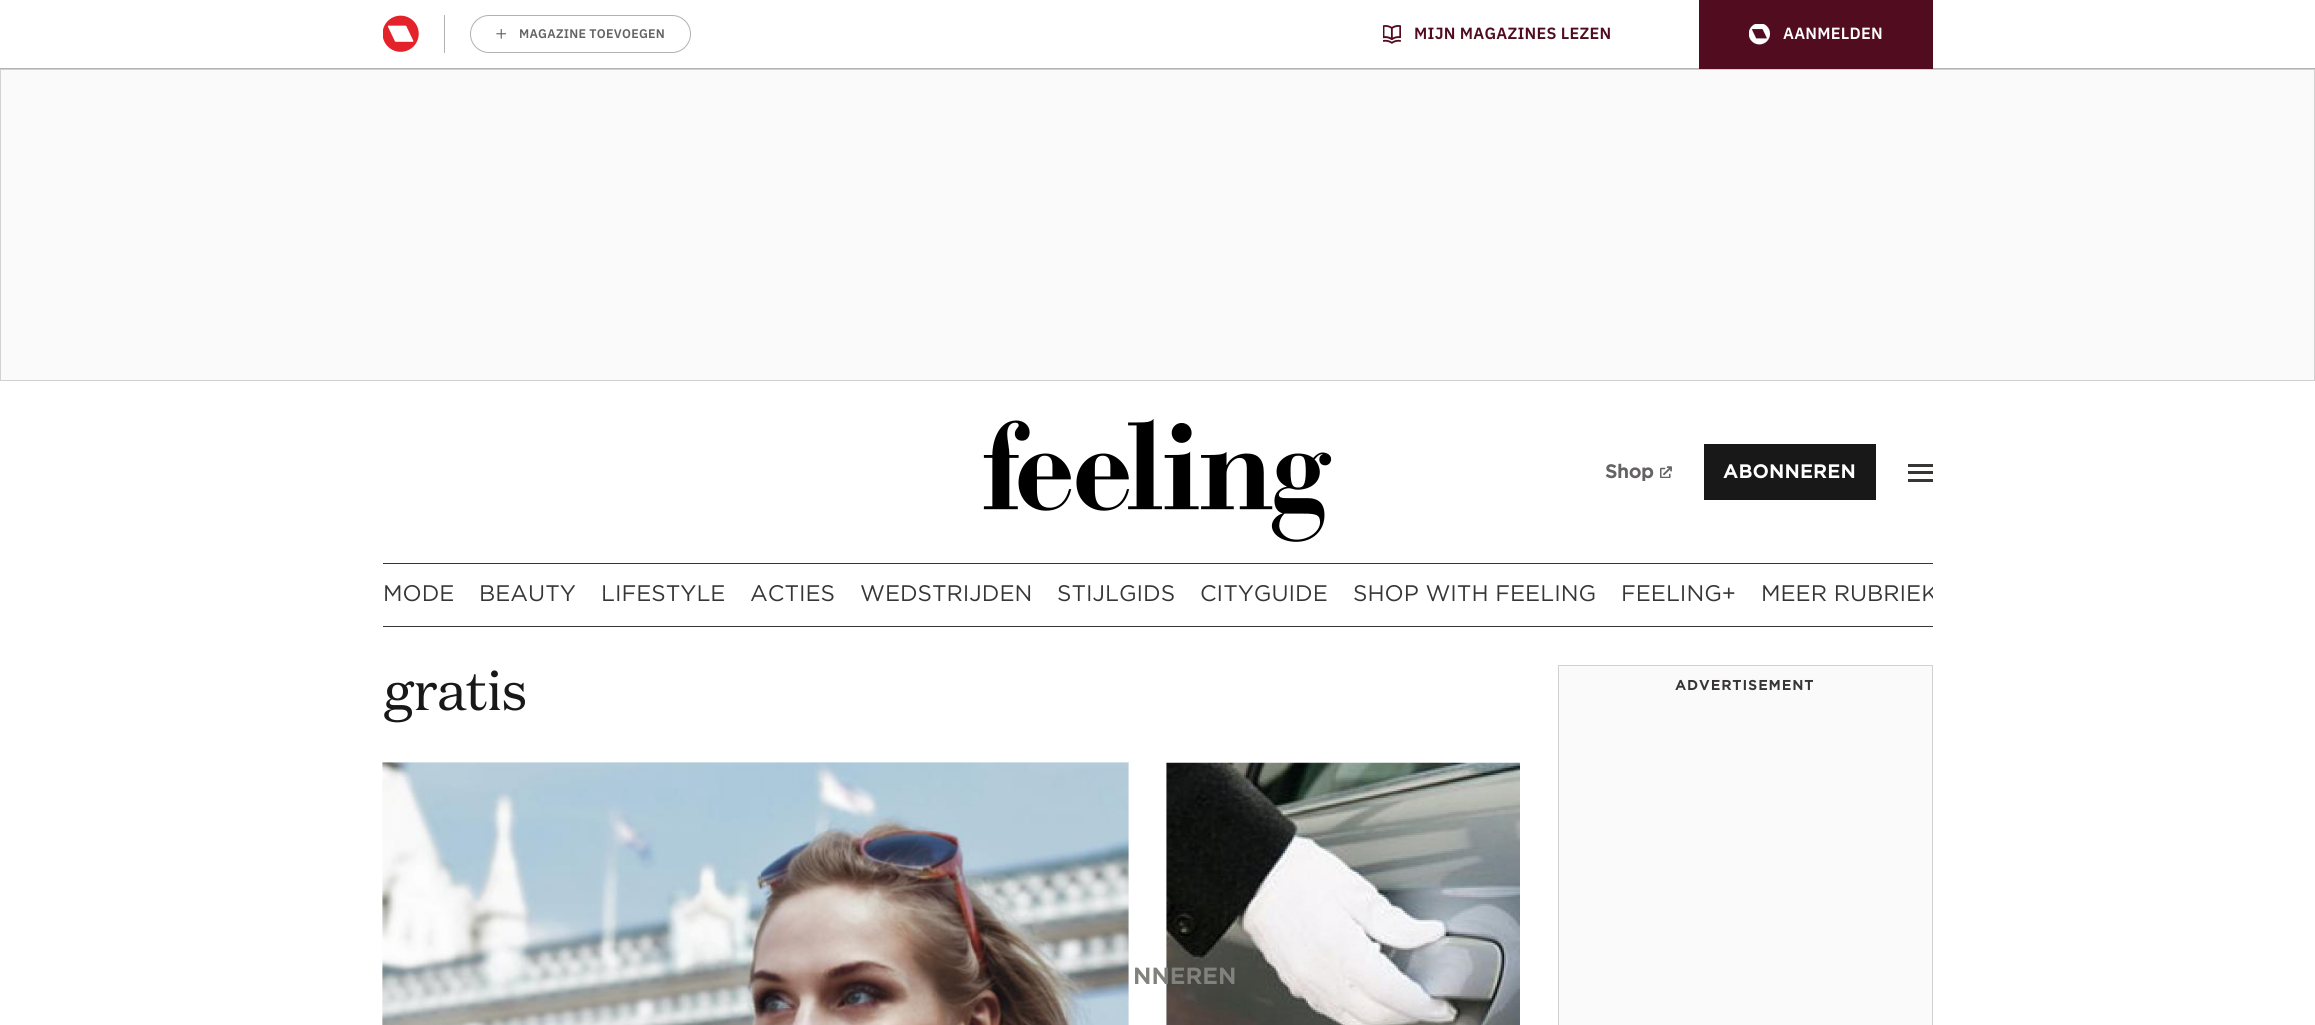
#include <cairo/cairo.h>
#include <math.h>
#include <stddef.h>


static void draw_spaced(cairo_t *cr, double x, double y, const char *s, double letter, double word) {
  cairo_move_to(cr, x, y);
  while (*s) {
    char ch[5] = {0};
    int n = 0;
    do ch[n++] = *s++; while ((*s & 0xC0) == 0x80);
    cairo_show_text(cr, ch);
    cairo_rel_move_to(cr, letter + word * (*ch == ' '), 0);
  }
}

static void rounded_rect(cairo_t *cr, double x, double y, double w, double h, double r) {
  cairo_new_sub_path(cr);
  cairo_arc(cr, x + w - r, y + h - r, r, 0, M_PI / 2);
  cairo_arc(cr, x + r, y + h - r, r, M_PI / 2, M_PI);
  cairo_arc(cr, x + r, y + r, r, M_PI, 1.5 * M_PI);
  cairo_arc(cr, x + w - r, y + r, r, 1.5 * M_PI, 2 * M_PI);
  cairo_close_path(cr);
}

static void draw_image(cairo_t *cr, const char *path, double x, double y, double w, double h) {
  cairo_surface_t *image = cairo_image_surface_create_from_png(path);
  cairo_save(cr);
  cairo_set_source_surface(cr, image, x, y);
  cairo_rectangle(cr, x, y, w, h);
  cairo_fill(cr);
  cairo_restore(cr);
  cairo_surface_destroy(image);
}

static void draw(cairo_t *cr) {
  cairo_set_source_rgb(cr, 1, 1, 1);
  cairo_paint(cr);
  cairo_set_source_rgb(cr, 178 / 255.0, 178 / 255.0, 178 / 255.0);
  cairo_rectangle(cr, 0, 68, 2315, 1);
  cairo_fill(cr);
  cairo_set_source_rgb(cr, 178 / 255.0, 177 / 255.0, 177 / 255.0);
  cairo_rectangle(cr, 444, 15, 1, 38);
  cairo_fill(cr);
  draw_image(cr, "images/1.png", 383, 15, 36, 37);
  rounded_rect(cr, 470.5, 15.5, 220, 37, 18.5);
  cairo_set_line_width(cr, 1);
  cairo_stroke(cr);
  draw_image(cr, "images/2.png", 496, 29, 10, 10);
  draw_image(cr, "images/3.png", 1383, 25, 18, 19);
  cairo_set_source_rgb(cr, 82 / 255.0, 12 / 255.0, 32 / 255.0);
  cairo_rectangle(cr, 1699, 0, 234, 69);
  cairo_fill(cr);
  draw_image(cr, "images/4.png", 1749, 24, 21, 21);
  cairo_set_source_rgb(cr, 250 / 255.0, 250 / 255.0, 250 / 255.0);
  cairo_rectangle(cr, 0.5, 69.5, 2314, 311);
  cairo_fill_preserve(cr);
  cairo_set_source_rgb(cr, 209 / 255.0, 209 / 255.0, 209 / 255.0);
  cairo_stroke(cr);
  draw_image(cr, "images/5.png", 983, 419, 349, 123);
  draw_image(cr, "images/6.png", 1660, 466, 12, 12);
  cairo_set_source_rgb(cr, 25 / 255.0, 24 / 255.0, 24 / 255.0);
  cairo_rectangle(cr, 1704, 444, 172, 56);
  cairo_fill(cr);
  cairo_set_source_rgb(cr, 56 / 255.0, 53 / 255.0, 53 / 255.0);
  cairo_rectangle(cr, 1908, 464, 25, 3);
  cairo_fill(cr);
  cairo_rectangle(cr, 1908, 471, 25, 3);
  cairo_fill(cr);
  cairo_rectangle(cr, 1908, 479, 25, 3);
  cairo_fill(cr);
  cairo_rectangle(cr, 383, 563, 1550, 1);
  cairo_fill(cr);
  cairo_rectangle(cr, 383, 626, 1550, 1);
  cairo_fill(cr);
  draw_image(cr, "images/7.png", 382, 762, 747, 263);
  cairo_set_source_rgb(cr, 250 / 255.0, 250 / 255.0, 250 / 255.0);
  cairo_rectangle(cr, 1128, 763, 1, 262);
  cairo_fill(cr);
  draw_image(cr, "images/8.png", 382, 762, 747, 263);
  cairo_rectangle(cr, 1166, 763, 1, 262);
  cairo_fill(cr);
  draw_image(cr, "images/9.png", 1166, 762, 354, 263);
  cairo_rectangle(cr, 1558.5, 665.5, 374, 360);
  cairo_fill_preserve(cr);
  cairo_set_source_rgb(cr, 209 / 255.0, 209 / 255.0, 209 / 255.0);
  cairo_stroke(cr);
  cairo_select_font_face(cr, "IBM Plex Sans SemiBold", CAIRO_FONT_SLANT_NORMAL, CAIRO_FONT_WEIGHT_NORMAL);
  cairo_set_font_size(cr, 12.5);
  cairo_set_source_rgb(cr, 100 / 255.0, 98 / 255.0, 98 / 255.0);
  draw_spaced(cr, 519, 38, "MAGAZINE TOEVOEGEN", 0.25, 0);
  cairo_set_font_size(cr, 16.25);
  cairo_set_source_rgb(cr, 82 / 255.0, 12 / 255.0, 32 / 255.0);
  draw_spaced(cr, 1414, 39, "MIJN MAGAZINES LEZEN", 0.25, 0);
  cairo_set_source_rgb(cr, 1, 1, 1);
  draw_spaced(cr, 1783, 39, "AANMELDEN", 0.25, 0);
  cairo_select_font_face(cr, "Gotham", CAIRO_FONT_SLANT_NORMAL, CAIRO_FONT_WEIGHT_BOLD);
  cairo_set_font_size(cr, 18.75);
  cairo_set_source_rgb(cr, 100 / 255.0, 98 / 255.0, 98 / 255.0);
  cairo_move_to(cr, 1605, 478);
  cairo_show_text(cr, "Shop");
  cairo_set_source_rgb(cr, 1, 1, 1);
  draw_spaced(cr, 1723, 478, "ABONNEREN", 0.6, 0);
  cairo_select_font_face(cr, "Gotham", CAIRO_FONT_SLANT_NORMAL, CAIRO_FONT_WEIGHT_NORMAL);
  cairo_set_font_size(cr, 22.5);
  cairo_set_source_rgb(cr, 56 / 255.0, 53 / 255.0, 53 / 255.0);
  cairo_move_to(cr, 383, 601);
  cairo_show_text(cr, "MODE");
  cairo_move_to(cr, 479, 601);
  cairo_show_text(cr, "BEAUTY");
  cairo_move_to(cr, 601, 601);
  cairo_show_text(cr, "LIFESTYLE");
  cairo_move_to(cr, 750, 601);
  cairo_show_text(cr, "ACTIES");
  cairo_move_to(cr, 860, 601);
  cairo_show_text(cr, "WEDSTRIJDEN");
  cairo_move_to(cr, 1057, 601);
  cairo_show_text(cr, "STIJLGIDS");
  cairo_move_to(cr, 1200, 601);
  cairo_show_text(cr, "CITYGUIDE");
  cairo_move_to(cr, 1353, 601);
  cairo_show_text(cr, "SHOP WITH FEELING");
  cairo_move_to(cr, 1621, 601);
  cairo_show_text(cr, "FEELING+");
  cairo_save(cr);
  cairo_rectangle(cr, 383, 564, 1550, 62);
  cairo_clip(cr);
  cairo_move_to(cr, 1761, 601);
  cairo_show_text(cr, "MEER RUBRIEK");
  cairo_restore(cr);
  cairo_select_font_face(cr, "Gotham", CAIRO_FONT_SLANT_NORMAL, CAIRO_FONT_WEIGHT_BOLD);
  cairo_set_source_rgb(cr, 129 / 255.0, 129 / 255.0, 125 / 255.0);
  draw_spaced(cr, 1133, 984, "NNEREN", 0.6, 0);
  cairo_select_font_face(cr, "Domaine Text", CAIRO_FONT_SLANT_NORMAL, CAIRO_FONT_WEIGHT_NORMAL);
  cairo_set_font_size(cr, 55);
  cairo_set_source_rgb(cr, 25 / 255.0, 24 / 255.0, 24 / 255.0);
  draw_spaced(cr, 383, 710, "gratis", -1.25, 0);
  cairo_select_font_face(cr, "Gotham", CAIRO_FONT_SLANT_NORMAL, CAIRO_FONT_WEIGHT_BOLD);
  cairo_set_font_size(cr, 13.75);
  cairo_set_source_rgb(cr, 56 / 255.0, 53 / 255.0, 53 / 255.0);
  draw_spaced(cr, 1675, 690, "ADVERTISEMENT", 1.25, 0);
}

int main(void) {
  cairo_surface_t *surface = cairo_image_surface_create(CAIRO_FORMAT_RGB24, 2315, 1025);
  cairo_t *cr = cairo_create(surface);
  cairo_font_options_t *options = cairo_font_options_create();
  cairo_font_options_set_hint_metrics(options, CAIRO_HINT_METRICS_OFF);
  cairo_font_options_set_hint_style(options, CAIRO_HINT_STYLE_NONE);
  cairo_set_font_options(cr, options);
  cairo_set_miter_limit(cr, 4);
  draw(cr);
  cairo_surface_write_to_png(surface, "out.png");
  cairo_font_options_destroy(options);
  cairo_destroy(cr);
  cairo_surface_destroy(surface);
  return 0;
}
